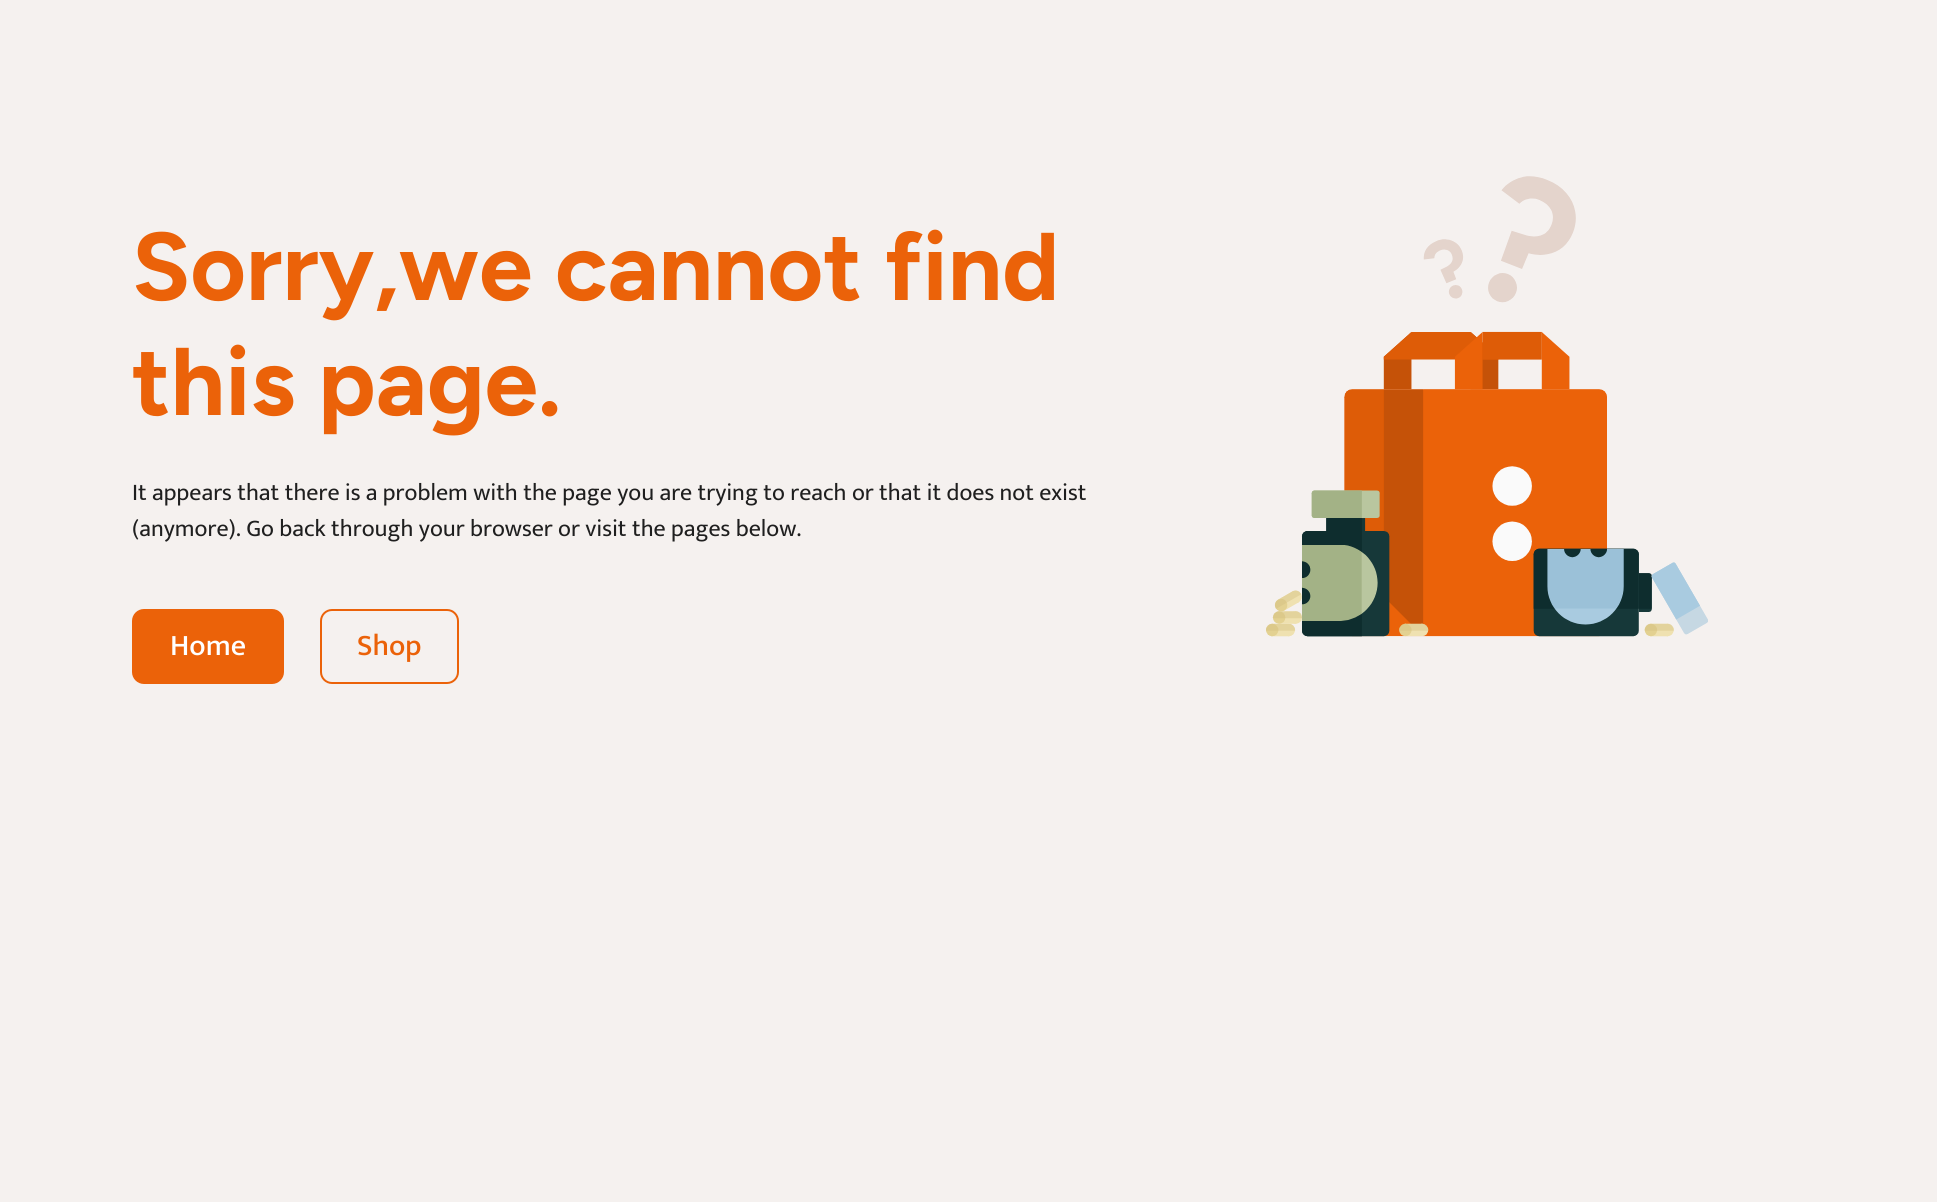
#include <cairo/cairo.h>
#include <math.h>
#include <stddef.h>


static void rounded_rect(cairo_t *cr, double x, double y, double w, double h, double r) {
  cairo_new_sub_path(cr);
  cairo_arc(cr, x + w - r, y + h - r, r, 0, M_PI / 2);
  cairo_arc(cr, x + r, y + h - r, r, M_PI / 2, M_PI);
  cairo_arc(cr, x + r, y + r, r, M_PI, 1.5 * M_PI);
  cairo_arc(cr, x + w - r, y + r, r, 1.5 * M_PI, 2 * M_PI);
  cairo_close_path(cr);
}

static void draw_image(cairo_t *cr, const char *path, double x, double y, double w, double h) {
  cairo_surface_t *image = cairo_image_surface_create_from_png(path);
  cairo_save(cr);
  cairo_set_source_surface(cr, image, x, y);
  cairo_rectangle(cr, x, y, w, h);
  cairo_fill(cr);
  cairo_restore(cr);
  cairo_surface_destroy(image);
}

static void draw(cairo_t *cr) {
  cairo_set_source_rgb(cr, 245 / 255.0, 241 / 255.0, 239 / 255.0);
  cairo_paint(cr);
  cairo_set_source_rgb(cr, 235 / 255.0, 98 / 255.0, 9 / 255.0);
  rounded_rect(cr, 133, 610, 150, 73, 11);
  cairo_fill_preserve(cr);
  cairo_stroke(cr);
  rounded_rect(cr, 321, 610, 137, 73, 11);
  cairo_stroke(cr);
  draw_image(cr, "images/1.png", 1266, 176, 442, 461);
  cairo_select_font_face(cr, "Figtree Light", CAIRO_FONT_SLANT_NORMAL, CAIRO_FONT_WEIGHT_NORMAL);
  cairo_set_font_size(cr, 96);
  cairo_move_to(cr, 132, 300);
  cairo_show_text(cr, "Sorry,we cannot find");
  cairo_move_to(cr, 132, 415);
  cairo_show_text(cr, "this page.");
  cairo_select_font_face(cr, "Mukta", CAIRO_FONT_SLANT_NORMAL, CAIRO_FONT_WEIGHT_NORMAL);
  cairo_set_font_size(cr, 24);
  cairo_set_source_rgb(cr, 31 / 255.0, 31 / 255.0, 31 / 255.0);
  cairo_move_to(cr, 132, 500);
  cairo_show_text(cr, "It appears that there is a problem with the page you are trying to reach or that it does not exist");
  cairo_move_to(cr, 132, 536);
  cairo_show_text(cr, "(anymore). Go back through your browser or visit the pages below.");
  cairo_select_font_face(cr, "Mukta Medium", CAIRO_FONT_SLANT_NORMAL, CAIRO_FONT_WEIGHT_NORMAL);
  cairo_set_font_size(cr, 30);
  cairo_set_source_rgb(cr, 1, 1, 1);
  cairo_move_to(cr, 170, 655);
  cairo_show_text(cr, "Home");
  cairo_set_source_rgb(cr, 235 / 255.0, 98 / 255.0, 9 / 255.0);
  cairo_move_to(cr, 357, 655);
  cairo_show_text(cr, "Shop");
}

int main(void) {
  cairo_surface_t *surface = cairo_image_surface_create(CAIRO_FORMAT_RGB24, 1937, 1202);
  cairo_t *cr = cairo_create(surface);
  cairo_font_options_t *options = cairo_font_options_create();
  cairo_font_options_set_hint_metrics(options, CAIRO_HINT_METRICS_OFF);
  cairo_font_options_set_hint_style(options, CAIRO_HINT_STYLE_NONE);
  cairo_set_font_options(cr, options);
  cairo_set_miter_limit(cr, 4);
  draw(cr);
  cairo_surface_write_to_png(surface, "out.png");
  cairo_font_options_destroy(options);
  cairo_destroy(cr);
  cairo_surface_destroy(surface);
  return 0;
}
